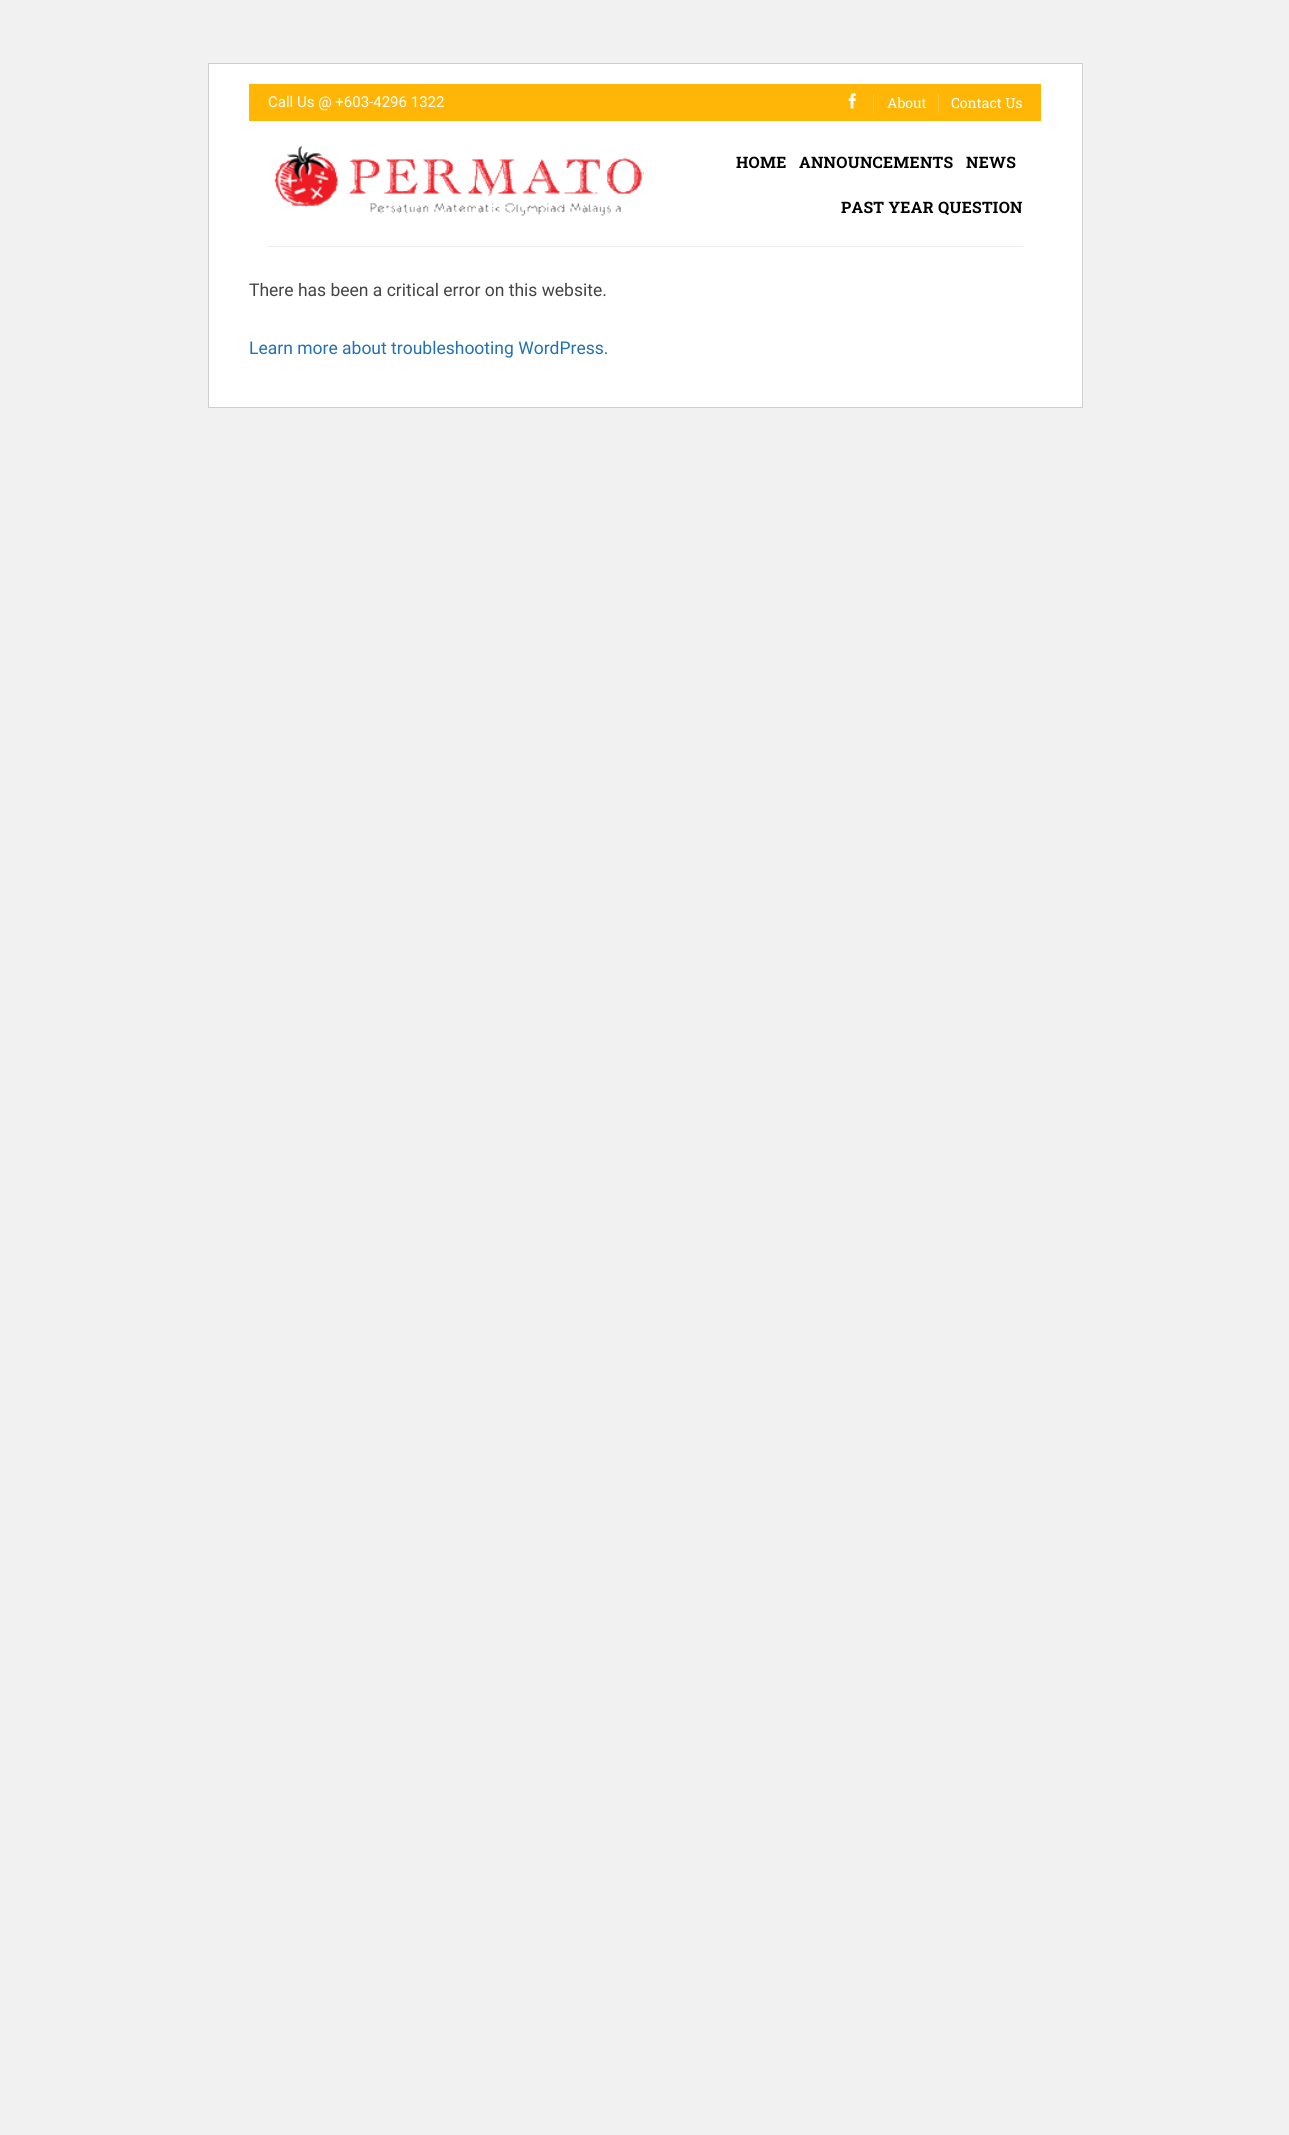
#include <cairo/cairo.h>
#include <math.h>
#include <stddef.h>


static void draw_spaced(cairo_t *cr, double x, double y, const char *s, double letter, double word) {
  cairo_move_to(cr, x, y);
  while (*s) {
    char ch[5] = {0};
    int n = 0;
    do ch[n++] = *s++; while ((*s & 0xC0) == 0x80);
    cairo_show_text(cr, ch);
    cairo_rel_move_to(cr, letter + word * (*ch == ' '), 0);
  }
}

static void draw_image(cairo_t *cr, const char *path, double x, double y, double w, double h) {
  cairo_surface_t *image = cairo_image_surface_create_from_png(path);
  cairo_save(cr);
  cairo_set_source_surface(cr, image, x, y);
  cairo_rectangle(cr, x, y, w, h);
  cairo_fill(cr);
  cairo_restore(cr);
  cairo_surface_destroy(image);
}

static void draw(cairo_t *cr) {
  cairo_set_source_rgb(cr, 241 / 255.0, 241 / 255.0, 241 / 255.0);
  cairo_paint(cr);
  cairo_set_source_rgb(cr, 1, 1, 1);
  cairo_rectangle(cr, 208.5, 63.5, 874, 344);
  cairo_fill_preserve(cr);
  cairo_set_source_rgb(cr, 204 / 255.0, 208 / 255.0, 212 / 255.0);
  cairo_set_line_width(cr, 1);
  cairo_stroke(cr);
  cairo_set_source_rgb(cr, 1, 182 / 255.0, 6 / 255.0);
  cairo_rectangle(cr, 249, 84, 792, 37);
  cairo_fill(cr);
  draw_image(cr, "images/1.png", 848, 93, 8, 16);
  cairo_set_source_rgb(cr, 1, 197 / 255.0, 56 / 255.0);
  cairo_rectangle(cr, 873, 94, 1, 19);
  cairo_fill(cr);
  cairo_rectangle(cr, 938, 94, 1, 19);
  cairo_fill(cr);
  draw_image(cr, "images/2.png", 274, 145, 371, 71);
  cairo_set_source_rgb(cr, 236 / 255.0, 236 / 255.0, 236 / 255.0);
  cairo_rectangle(cr, 268, 246, 755, 1);
  cairo_fill(cr);
  cairo_select_font_face(cr, "Roboto", CAIRO_FONT_SLANT_NORMAL, CAIRO_FONT_WEIGHT_NORMAL);
  cairo_set_font_size(cr, 15);
  cairo_set_source_rgb(cr, 1, 1, 1);
  cairo_move_to(cr, 268, 107);
  cairo_show_text(cr, "Call Us @ +603-4296 1322");
  cairo_select_font_face(cr, "Roboto Slab", CAIRO_FONT_SLANT_NORMAL, CAIRO_FONT_WEIGHT_NORMAL);
  cairo_set_font_size(cr, 14);
  cairo_move_to(cr, 887, 108);
  cairo_show_text(cr, "About");
  cairo_move_to(cr, 951, 108);
  cairo_show_text(cr, "Contact Us");
  cairo_select_font_face(cr, "Roboto Slab", CAIRO_FONT_SLANT_NORMAL, CAIRO_FONT_WEIGHT_BOLD);
  cairo_set_font_size(cr, 15.75);
  cairo_set_source_rgb(cr, 0, 0, 0);
  draw_spaced(cr, 736, 168, "HOME", 0.3, 0);
  draw_spaced(cr, 799, 168, "ANNOUNCEMENTS", 0.3, 0);
  draw_spaced(cr, 966, 168, "NEWS", 0.3, 0);
  draw_spaced(cr, 841, 213, "PAST YEAR QUESTION", 0.3, 0);
  cairo_select_font_face(cr, "Roboto", CAIRO_FONT_SLANT_NORMAL, CAIRO_FONT_WEIGHT_NORMAL);
  cairo_set_font_size(cr, 17.5);
  cairo_set_source_rgb(cr, 68 / 255.0, 68 / 255.0, 68 / 255.0);
  cairo_move_to(cr, 249, 296);
  cairo_show_text(cr, "There has been a critical error on this website.");
  cairo_set_source_rgb(cr, 34 / 255.0, 113 / 255.0, 177 / 255.0);
  cairo_move_to(cr, 249, 354);
  cairo_show_text(cr, "Learn more about troubleshooting WordPress.");
}

int main(void) {
  cairo_surface_t *surface = cairo_image_surface_create(CAIRO_FORMAT_RGB24, 1289, 2135);
  cairo_t *cr = cairo_create(surface);
  cairo_font_options_t *options = cairo_font_options_create();
  cairo_font_options_set_hint_metrics(options, CAIRO_HINT_METRICS_OFF);
  cairo_font_options_set_hint_style(options, CAIRO_HINT_STYLE_NONE);
  cairo_set_font_options(cr, options);
  cairo_set_miter_limit(cr, 4);
  draw(cr);
  cairo_surface_write_to_png(surface, "out.png");
  cairo_font_options_destroy(options);
  cairo_destroy(cr);
  cairo_surface_destroy(surface);
  return 0;
}
